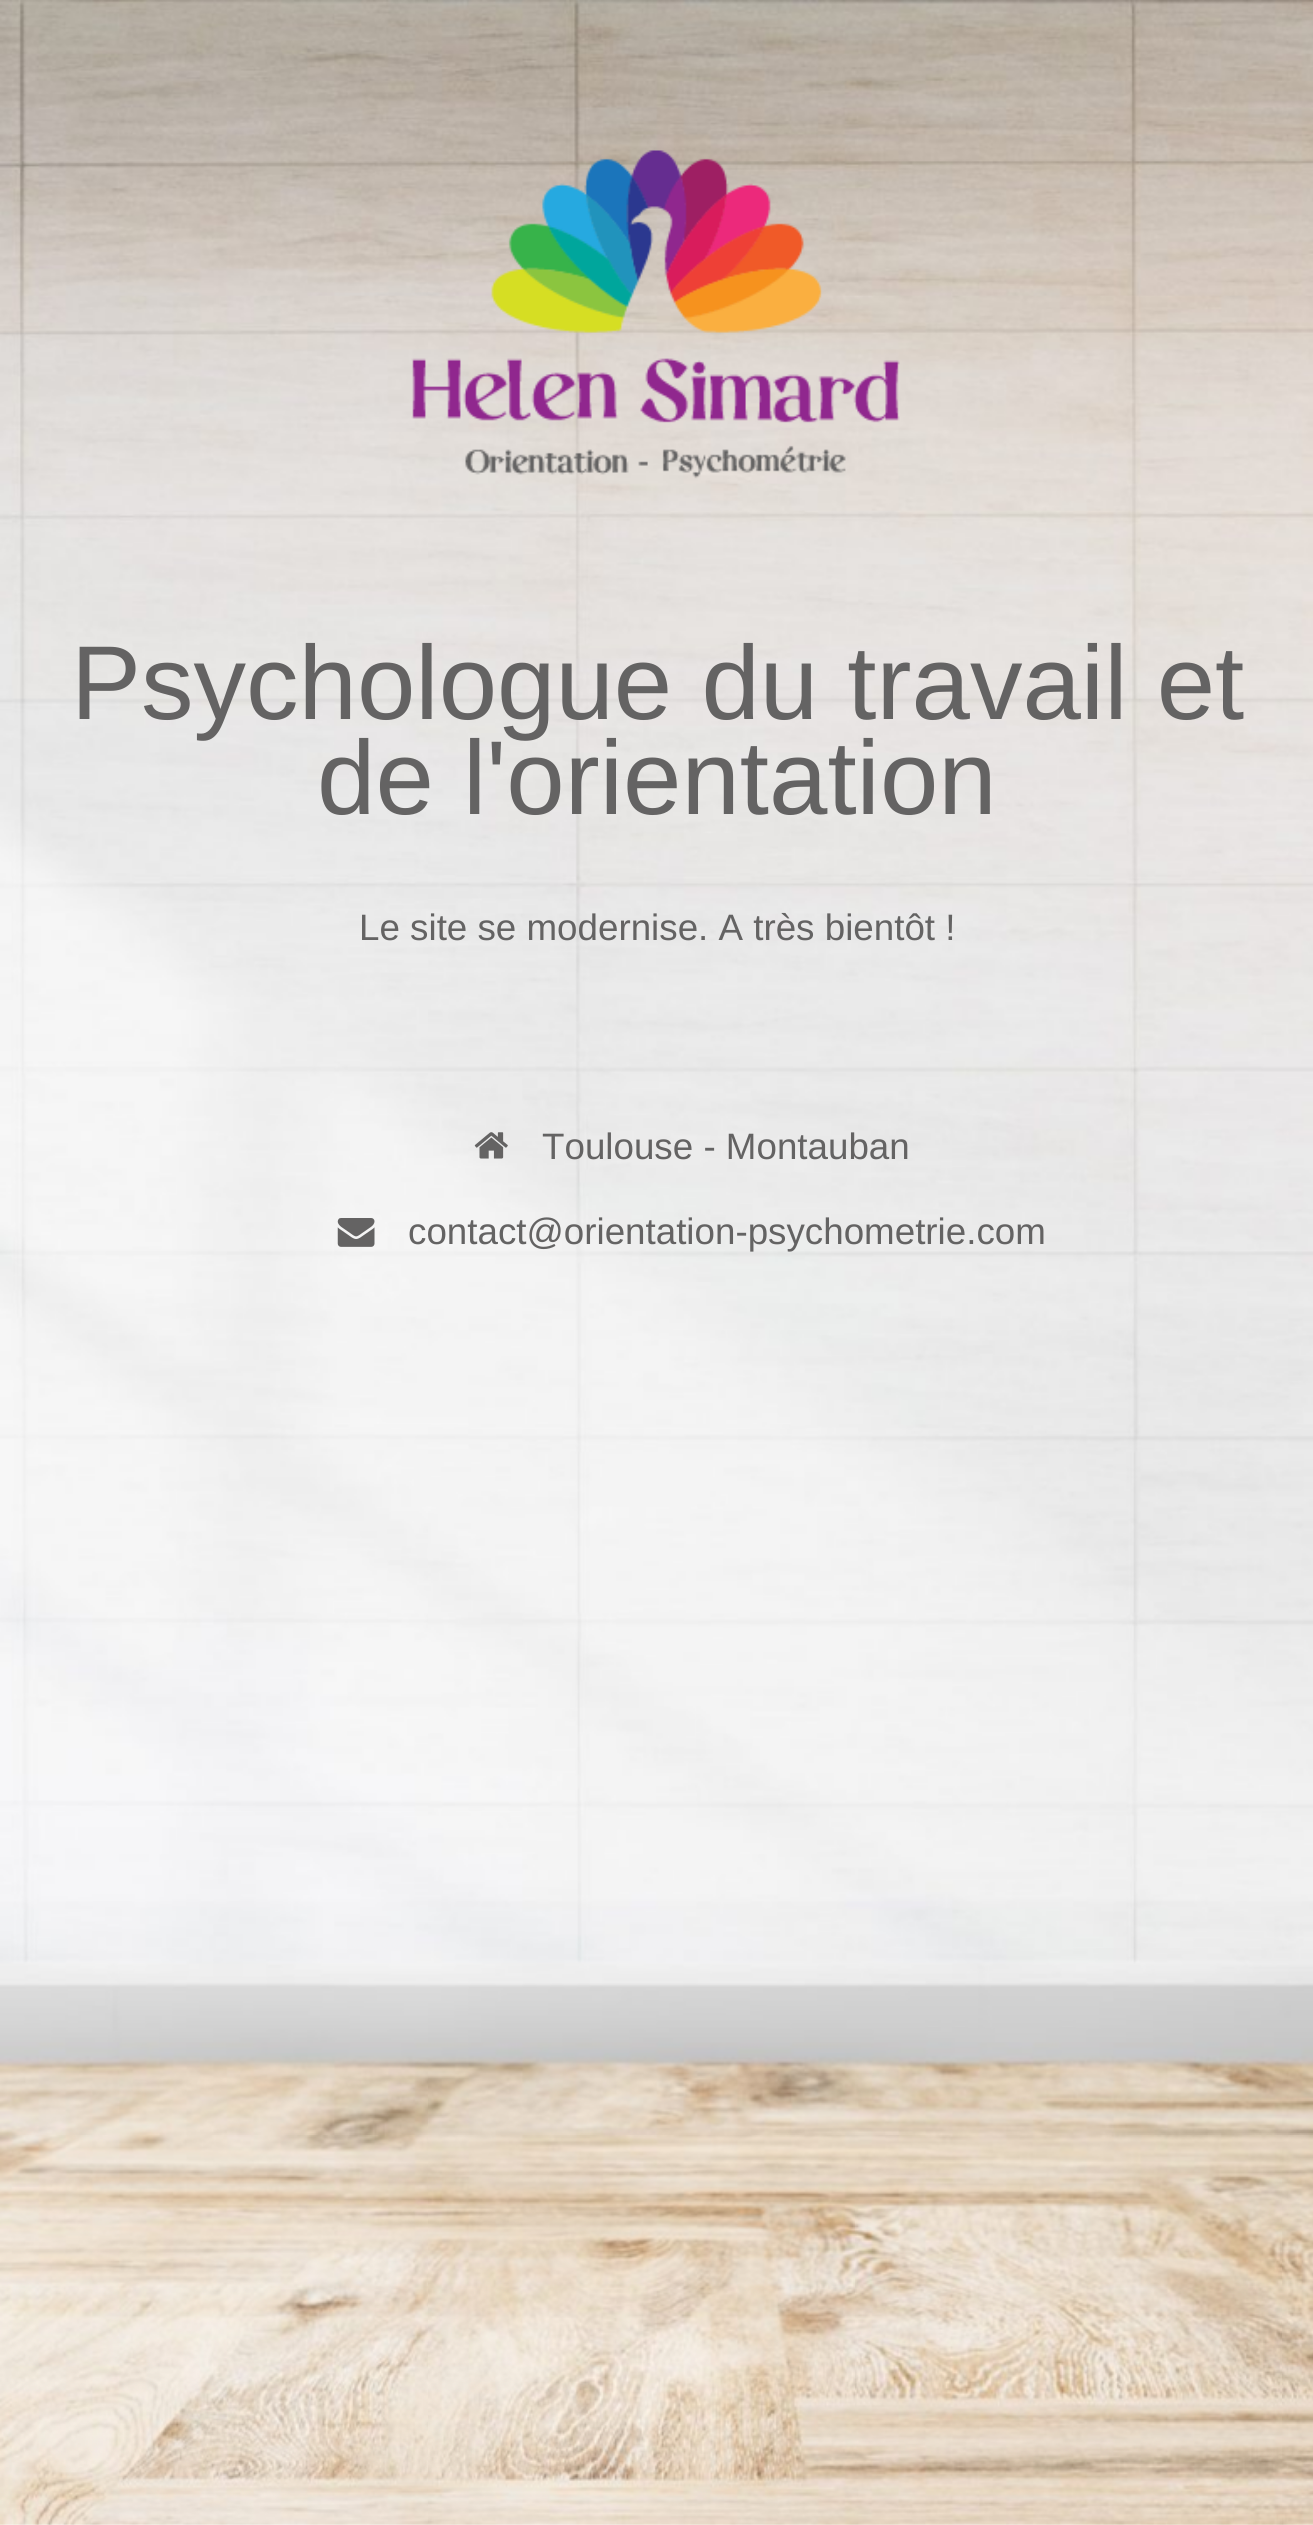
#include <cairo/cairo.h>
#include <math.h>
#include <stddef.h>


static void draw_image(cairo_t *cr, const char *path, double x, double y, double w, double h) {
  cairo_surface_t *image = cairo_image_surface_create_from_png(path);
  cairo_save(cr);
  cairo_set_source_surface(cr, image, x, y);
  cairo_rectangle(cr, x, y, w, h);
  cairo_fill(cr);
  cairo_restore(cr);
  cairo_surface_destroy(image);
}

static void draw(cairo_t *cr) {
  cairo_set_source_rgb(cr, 1, 1, 1);
  cairo_paint(cr);
  draw_image(cr, "images/1.png", 0, 0, 1313, 2525);
  draw_image(cr, "images/2.png", 411, 150, 489, 329);
  draw_image(cr, "images/3.png", 474, 1132, 34, 27);
  draw_image(cr, "images/4.png", 337, 1218, 38, 29);
  cairo_select_font_face(cr, "Liberation Sans", CAIRO_FONT_SLANT_NORMAL, CAIRO_FONT_WEIGHT_NORMAL);
  cairo_set_font_size(cr, 105);
  cairo_set_source_rgb(cr, 100 / 255.0, 99 / 255.0, 99 / 255.0);
  cairo_move_to(cr, 71, 719);
  cairo_show_text(cr, "Psychologue du travail et");
  cairo_move_to(cr, 317, 814);
  cairo_show_text(cr, "de l'orientation");
  cairo_set_font_size(cr, 36.75);
  cairo_move_to(cr, 359, 940);
  cairo_show_text(cr, "Le site se modernise. A très bientôt !");
  cairo_move_to(cr, 542, 1159);
  cairo_show_text(cr, "Toulouse - Montauban");
  cairo_move_to(cr, 408, 1244);
  cairo_show_text(cr, "contact@orientation-psychometrie.com");
}

int main(void) {
  cairo_surface_t *surface = cairo_image_surface_create(CAIRO_FORMAT_RGB24, 1313, 2525);
  cairo_t *cr = cairo_create(surface);
  cairo_font_options_t *options = cairo_font_options_create();
  cairo_font_options_set_hint_metrics(options, CAIRO_HINT_METRICS_OFF);
  cairo_font_options_set_hint_style(options, CAIRO_HINT_STYLE_NONE);
  cairo_set_font_options(cr, options);
  cairo_set_miter_limit(cr, 4);
  draw(cr);
  cairo_surface_write_to_png(surface, "out.png");
  cairo_font_options_destroy(options);
  cairo_destroy(cr);
  cairo_surface_destroy(surface);
  return 0;
}
